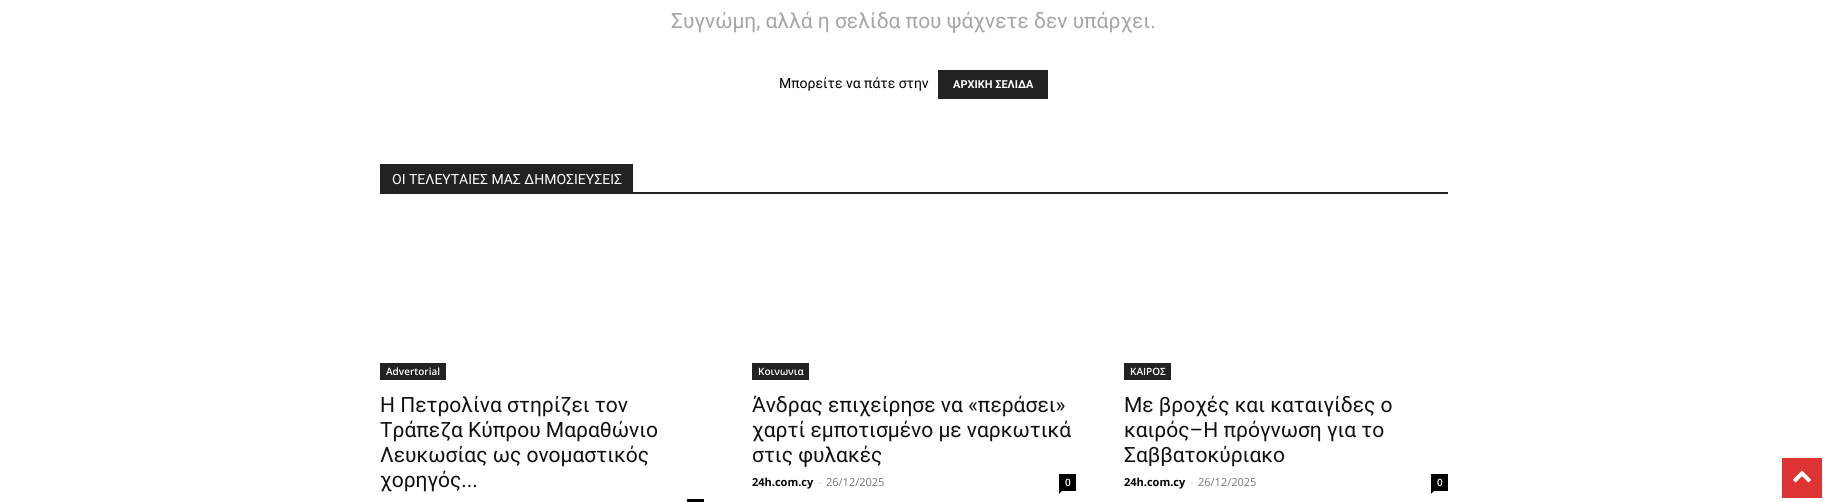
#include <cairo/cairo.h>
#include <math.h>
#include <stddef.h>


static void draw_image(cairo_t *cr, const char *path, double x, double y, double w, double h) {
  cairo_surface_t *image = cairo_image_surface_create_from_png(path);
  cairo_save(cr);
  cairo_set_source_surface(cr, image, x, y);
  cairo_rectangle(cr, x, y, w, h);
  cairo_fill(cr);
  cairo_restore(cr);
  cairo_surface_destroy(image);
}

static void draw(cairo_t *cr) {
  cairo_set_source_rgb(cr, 1, 1, 1);
  cairo_paint(cr);
  cairo_set_source_rgb(cr, 34 / 255.0, 34 / 255.0, 34 / 255.0);
  cairo_rectangle(cr, 938, 70, 110, 29);
  cairo_fill(cr);
  cairo_rectangle(cr, 380, 192, 1068, 2);
  cairo_fill(cr);
  cairo_rectangle(cr, 380, 164, 253, 28);
  cairo_fill(cr);
  cairo_rectangle(cr, 380, 363, 66, 17);
  cairo_fill(cr);
  cairo_set_source_rgb(cr, 0, 0, 0);
  cairo_rectangle(cr, 687, 499, 17, 3);
  cairo_fill(cr);
  cairo_set_source_rgb(cr, 34 / 255.0, 34 / 255.0, 34 / 255.0);
  cairo_rectangle(cr, 752, 363, 57, 17);
  cairo_fill(cr);
  cairo_set_source_rgb(cr, 0, 0, 0);
  cairo_rectangle(cr, 1059, 474, 17, 17);
  cairo_fill(cr);
  cairo_new_path(cr);
  cairo_move_to(cr, 1059, 491);
  cairo_line_to(cr, 1062, 491);
  cairo_line_to(cr, 1059, 494);
  cairo_close_path(cr);
  cairo_fill(cr);
  cairo_set_source_rgb(cr, 34 / 255.0, 34 / 255.0, 34 / 255.0);
  cairo_rectangle(cr, 1124, 363, 47, 17);
  cairo_fill(cr);
  cairo_set_source_rgb(cr, 0, 0, 0);
  cairo_rectangle(cr, 1431, 474, 17, 17);
  cairo_fill(cr);
  cairo_new_path(cr);
  cairo_move_to(cr, 1431, 491);
  cairo_line_to(cr, 1434, 491);
  cairo_line_to(cr, 1431, 494);
  cairo_close_path(cr);
  cairo_fill(cr);
  cairo_set_source_rgb(cr, 221 / 255.0, 51 / 255.0, 51 / 255.0);
  cairo_rectangle(cr, 1782, 458, 40, 40);
  cairo_fill(cr);
  draw_image(cr, "images/1.png", 1793, 470, 18, 13);
  cairo_select_font_face(cr, "Roboto", CAIRO_FONT_SLANT_NORMAL, CAIRO_FONT_WEIGHT_NORMAL);
  cairo_set_font_size(cr, 21);
  cairo_set_source_rgb(cr, 166 / 255.0, 166 / 255.0, 166 / 255.0);
  cairo_move_to(cr, 671, 28);
  cairo_show_text(cr, "Συγνώμη, αλλά η σελίδα που ψάχνετε δεν υπάρχει.");
  cairo_set_font_size(cr, 14);
  cairo_set_source_rgb(cr, 0, 0, 0);
  cairo_move_to(cr, 779, 88);
  cairo_show_text(cr, "Μπορείτε να πάτε στην");
  cairo_select_font_face(cr, "Roboto", CAIRO_FONT_SLANT_NORMAL, CAIRO_FONT_WEIGHT_BOLD);
  cairo_set_font_size(cr, 11);
  cairo_set_source_rgb(cr, 1, 1, 1);
  cairo_move_to(cr, 953, 88);
  cairo_show_text(cr, "ΑΡΧΙΚΗ ΣΕΛΙΔΑ");
  cairo_select_font_face(cr, "Roboto", CAIRO_FONT_SLANT_NORMAL, CAIRO_FONT_WEIGHT_NORMAL);
  cairo_set_font_size(cr, 14);
  cairo_move_to(cr, 392, 184);
  cairo_show_text(cr, "ΟΙ ΤΕΛΕΥΤΑΙΕΣ ΜΑΣ ΔΗΜΟΣΙΕΥΣΕΙΣ");
  cairo_select_font_face(cr, "Open Sans SemiBold", CAIRO_FONT_SLANT_NORMAL, CAIRO_FONT_WEIGHT_NORMAL);
  cairo_set_font_size(cr, 10);
  cairo_move_to(cr, 386, 375);
  cairo_show_text(cr, "Advertorial");
  cairo_select_font_face(cr, "Roboto", CAIRO_FONT_SLANT_NORMAL, CAIRO_FONT_WEIGHT_NORMAL);
  cairo_set_font_size(cr, 21);
  cairo_set_source_rgb(cr, 17 / 255.0, 17 / 255.0, 17 / 255.0);
  cairo_move_to(cr, 380, 412);
  cairo_show_text(cr, "Η Πετρολίνα στηρίζει τον");
  cairo_move_to(cr, 380, 437);
  cairo_show_text(cr, "Τράπεζα Κύπρου Μαραθώνιο");
  cairo_move_to(cr, 380, 462);
  cairo_show_text(cr, "Λευκωσίας ως ονομαστικός");
  cairo_move_to(cr, 380, 487);
  cairo_show_text(cr, "χορηγός...");
  cairo_select_font_face(cr, "Open Sans SemiBold", CAIRO_FONT_SLANT_NORMAL, CAIRO_FONT_WEIGHT_NORMAL);
  cairo_set_font_size(cr, 10);
  cairo_set_source_rgb(cr, 1, 1, 1);
  cairo_move_to(cr, 758, 375);
  cairo_show_text(cr, "Κοινωνια");
  cairo_select_font_face(cr, "Roboto", CAIRO_FONT_SLANT_NORMAL, CAIRO_FONT_WEIGHT_NORMAL);
  cairo_set_font_size(cr, 21);
  cairo_set_source_rgb(cr, 17 / 255.0, 17 / 255.0, 17 / 255.0);
  cairo_move_to(cr, 752, 412);
  cairo_show_text(cr, "Άνδρας επιχείρησε να «περάσει»");
  cairo_move_to(cr, 752, 437);
  cairo_show_text(cr, "χαρτί εμποτισμένο με ναρκωτικά");
  cairo_move_to(cr, 752, 462);
  cairo_show_text(cr, "στις φυλακές");
  cairo_select_font_face(cr, "Open Sans", CAIRO_FONT_SLANT_NORMAL, CAIRO_FONT_WEIGHT_BOLD);
  cairo_set_font_size(cr, 11);
  cairo_set_source_rgb(cr, 0, 0, 0);
  cairo_move_to(cr, 752, 486);
  cairo_show_text(cr, "24h.com.cy");
  cairo_select_font_face(cr, "Open Sans", CAIRO_FONT_SLANT_NORMAL, CAIRO_FONT_WEIGHT_NORMAL);
  cairo_set_source_rgb(cr, 204 / 255.0, 204 / 255.0, 204 / 255.0);
  cairo_move_to(cr, 818, 486);
  cairo_show_text(cr, "-");
  cairo_set_source_rgb(cr, 118 / 255.0, 118 / 255.0, 118 / 255.0);
  cairo_move_to(cr, 826, 486);
  cairo_show_text(cr, "26/12/2025");
  cairo_select_font_face(cr, "Open Sans SemiBold", CAIRO_FONT_SLANT_NORMAL, CAIRO_FONT_WEIGHT_NORMAL);
  cairo_set_font_size(cr, 10);
  cairo_set_source_rgb(cr, 1, 1, 1);
  cairo_move_to(cr, 1065, 486);
  cairo_show_text(cr, "0");
  cairo_move_to(cr, 1130, 375);
  cairo_show_text(cr, "ΚΑΙΡΟΣ");
  cairo_select_font_face(cr, "Roboto", CAIRO_FONT_SLANT_NORMAL, CAIRO_FONT_WEIGHT_NORMAL);
  cairo_set_font_size(cr, 21);
  cairo_set_source_rgb(cr, 17 / 255.0, 17 / 255.0, 17 / 255.0);
  cairo_move_to(cr, 1124, 412);
  cairo_show_text(cr, "Με βροχές και καταιγίδες ο");
  cairo_move_to(cr, 1124, 437);
  cairo_show_text(cr, "καιρός–Η πρόγνωση για το");
  cairo_move_to(cr, 1124, 462);
  cairo_show_text(cr, "Σαββατοκύριακο");
  cairo_select_font_face(cr, "Open Sans", CAIRO_FONT_SLANT_NORMAL, CAIRO_FONT_WEIGHT_BOLD);
  cairo_set_font_size(cr, 11);
  cairo_set_source_rgb(cr, 0, 0, 0);
  cairo_move_to(cr, 1124, 486);
  cairo_show_text(cr, "24h.com.cy");
  cairo_select_font_face(cr, "Open Sans", CAIRO_FONT_SLANT_NORMAL, CAIRO_FONT_WEIGHT_NORMAL);
  cairo_set_source_rgb(cr, 204 / 255.0, 204 / 255.0, 204 / 255.0);
  cairo_move_to(cr, 1190, 486);
  cairo_show_text(cr, "-");
  cairo_set_source_rgb(cr, 118 / 255.0, 118 / 255.0, 118 / 255.0);
  cairo_move_to(cr, 1198, 486);
  cairo_show_text(cr, "26/12/2025");
  cairo_select_font_face(cr, "Open Sans SemiBold", CAIRO_FONT_SLANT_NORMAL, CAIRO_FONT_WEIGHT_NORMAL);
  cairo_set_font_size(cr, 10);
  cairo_set_source_rgb(cr, 1, 1, 1);
  cairo_move_to(cr, 1437, 486);
  cairo_show_text(cr, "0");
}

int main(void) {
  cairo_surface_t *surface = cairo_image_surface_create(CAIRO_FORMAT_RGB24, 1827, 502);
  cairo_t *cr = cairo_create(surface);
  cairo_font_options_t *options = cairo_font_options_create();
  cairo_font_options_set_hint_metrics(options, CAIRO_HINT_METRICS_OFF);
  cairo_font_options_set_hint_style(options, CAIRO_HINT_STYLE_NONE);
  cairo_set_font_options(cr, options);
  cairo_set_miter_limit(cr, 4);
  draw(cr);
  cairo_surface_write_to_png(surface, "out.png");
  cairo_font_options_destroy(options);
  cairo_destroy(cr);
  cairo_surface_destroy(surface);
  return 0;
}
